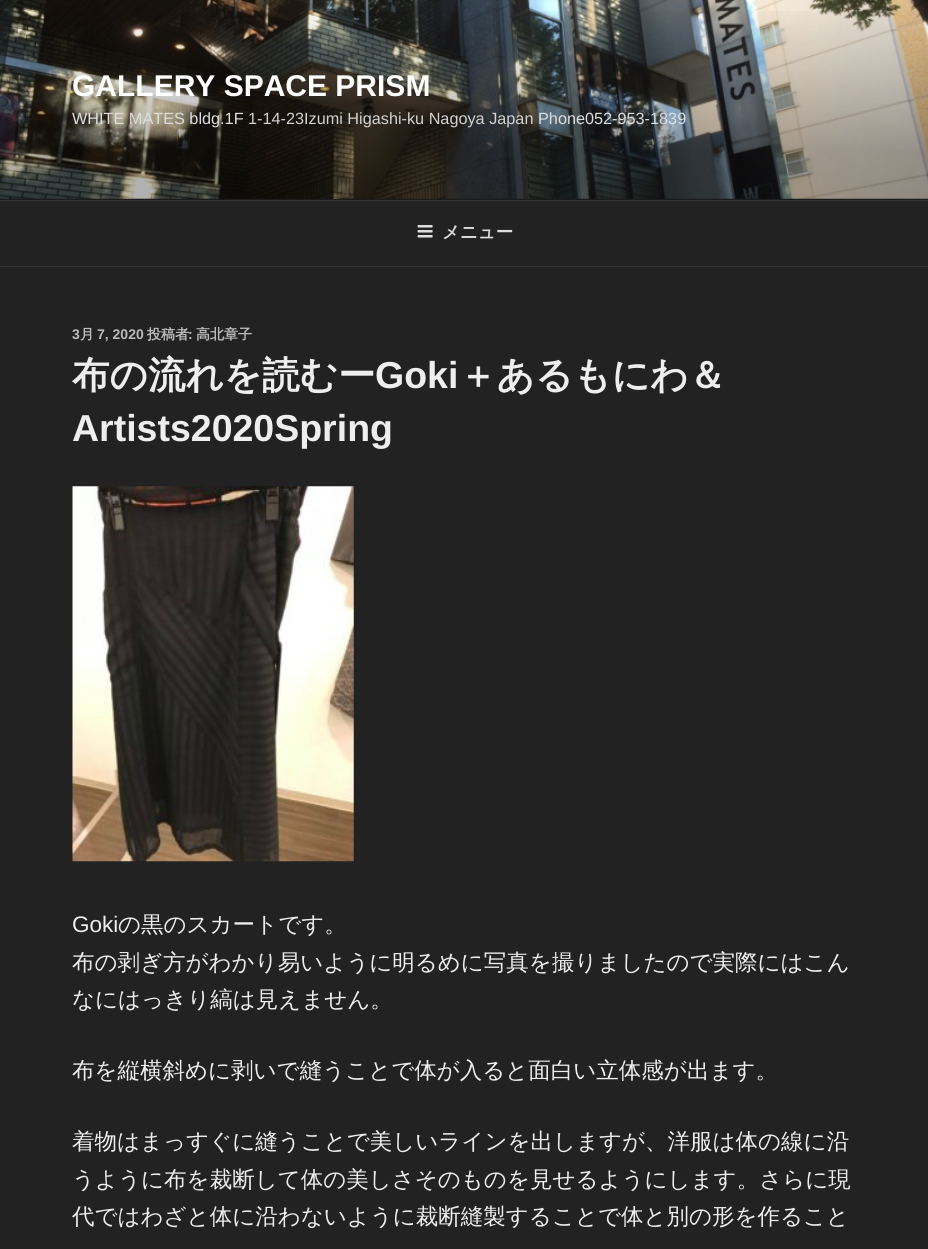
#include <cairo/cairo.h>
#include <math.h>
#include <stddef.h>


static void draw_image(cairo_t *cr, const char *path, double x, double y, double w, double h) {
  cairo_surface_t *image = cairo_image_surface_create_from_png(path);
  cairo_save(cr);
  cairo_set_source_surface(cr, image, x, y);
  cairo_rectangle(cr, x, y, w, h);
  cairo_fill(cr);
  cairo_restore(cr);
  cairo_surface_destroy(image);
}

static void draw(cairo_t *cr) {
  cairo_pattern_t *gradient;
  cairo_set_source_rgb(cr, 34 / 255.0, 34 / 255.0, 34 / 255.0);
  cairo_paint(cr);
  cairo_set_source_rgb(cr, 38 / 255.0, 38 / 255.0, 38 / 255.0);
  cairo_rectangle(cr, 0, 198, 928, 2);
  cairo_fill(cr);
  draw_image(cr, "images/1.png", 0, 0, 928, 199);
  gradient = cairo_pattern_create_linear(464, 0, 464, 200);
  cairo_pattern_add_color_stop_rgba(gradient, 0, 0, 0, 0, 0);
  cairo_pattern_add_color_stop_rgba(gradient, 0.75, 0, 0, 0, 0.3);
  cairo_pattern_add_color_stop_rgba(gradient, 1, 0, 0, 0, 0.3);
  cairo_set_source(cr, gradient);
  cairo_pattern_destroy(gradient);
  cairo_rectangle(cr, 0, 11, 928, 189);
  cairo_fill(cr);
  cairo_set_source_rgb(cr, 51 / 255.0, 51 / 255.0, 51 / 255.0);
  cairo_rectangle(cr, 0, 200, 928, 1);
  cairo_fill(cr);
  cairo_rectangle(cr, 0, 266, 928, 1);
  cairo_fill(cr);
  draw_image(cr, "images/2.png", 417, 225, 16, 13);
  draw_image(cr, "images/3.png", 72, 486, 282, 376);
  cairo_select_font_face(cr, "Liberation Sans", CAIRO_FONT_SLANT_NORMAL, CAIRO_FONT_WEIGHT_BOLD);
  cairo_set_font_size(cr, 30);
  cairo_set_source_rgb(cr, 1, 1, 1);
  cairo_move_to(cr, 72, 96);
  cairo_show_text(cr, "GALLERY SPACE PRISM");
  cairo_select_font_face(cr, "Liberation Sans", CAIRO_FONT_SLANT_NORMAL, CAIRO_FONT_WEIGHT_NORMAL);
  cairo_set_font_size(cr, 16.25);
  cairo_set_source_rgb(cr, 221 / 255.0, 221 / 255.0, 221 / 255.0);
  cairo_move_to(cr, 72, 124);
  cairo_show_text(cr, "WHITE MATES bldg.1F");
  cairo_set_source_rgb(cr, 211 / 255.0, 210 / 255.0, 209 / 255.0);
  cairo_move_to(cr, 248, 124);
  cairo_show_text(cr, "1-14-23Izumi Higashi-ku Nagoya Japan");
  cairo_set_source_rgb(cr, 221 / 255.0, 221 / 255.0, 221 / 255.0);
  cairo_move_to(cr, 538, 124);
  cairo_show_text(cr, "Phone052-953-1839");
  cairo_select_font_face(cr, "WenQuanYi Zen Hei", CAIRO_FONT_SLANT_NORMAL, CAIRO_FONT_WEIGHT_BOLD);
  cairo_set_font_size(cr, 17.5);
  cairo_move_to(cr, 442, 238);
  cairo_show_text(cr, "メニュー");
  cairo_select_font_face(cr, "Liberation Sans", CAIRO_FONT_SLANT_NORMAL, CAIRO_FONT_WEIGHT_BOLD);
  cairo_set_font_size(cr, 14);
  cairo_set_source_rgb(cr, 187 / 255.0, 187 / 255.0, 187 / 255.0);
  cairo_move_to(cr, 72, 339);
  cairo_show_text(cr, "3");
  cairo_select_font_face(cr, "WenQuanYi Zen Hei", CAIRO_FONT_SLANT_NORMAL, CAIRO_FONT_WEIGHT_BOLD);
  cairo_move_to(cr, 80, 339);
  cairo_show_text(cr, "月");
  cairo_select_font_face(cr, "Liberation Sans", CAIRO_FONT_SLANT_NORMAL, CAIRO_FONT_WEIGHT_BOLD);
  cairo_move_to(cr, 97, 339);
  cairo_show_text(cr, "7, 2020");
  cairo_select_font_face(cr, "WenQuanYi Zen Hei", CAIRO_FONT_SLANT_NORMAL, CAIRO_FONT_WEIGHT_BOLD);
  cairo_move_to(cr, 147, 339);
  cairo_show_text(cr, "投稿者");
  cairo_select_font_face(cr, "Liberation Sans", CAIRO_FONT_SLANT_NORMAL, CAIRO_FONT_WEIGHT_BOLD);
  cairo_move_to(cr, 188, 339);
  cairo_show_text(cr, ":");
  cairo_select_font_face(cr, "WenQuanYi Zen Hei", CAIRO_FONT_SLANT_NORMAL, CAIRO_FONT_WEIGHT_BOLD);
  cairo_move_to(cr, 196, 339);
  cairo_show_text(cr, "高北章子");
  cairo_set_font_size(cr, 37.5);
  cairo_set_source_rgb(cr, 238 / 255.0, 238 / 255.0, 238 / 255.0);
  cairo_move_to(cr, 72, 388);
  cairo_show_text(cr, "布の流れを読むー");
  cairo_select_font_face(cr, "Liberation Sans", CAIRO_FONT_SLANT_NORMAL, CAIRO_FONT_WEIGHT_BOLD);
  cairo_move_to(cr, 375, 388);
  cairo_show_text(cr, "Goki");
  cairo_select_font_face(cr, "WenQuanYi Zen Hei", CAIRO_FONT_SLANT_NORMAL, CAIRO_FONT_WEIGHT_BOLD);
  cairo_move_to(cr, 459, 388);
  cairo_show_text(cr, "＋あるもにわ＆");
  cairo_select_font_face(cr, "Liberation Sans", CAIRO_FONT_SLANT_NORMAL, CAIRO_FONT_WEIGHT_BOLD);
  cairo_move_to(cr, 72, 441);
  cairo_show_text(cr, "Artists2020Spring");
  cairo_select_font_face(cr, "Liberation Sans", CAIRO_FONT_SLANT_NORMAL, CAIRO_FONT_WEIGHT_NORMAL);
  cairo_set_font_size(cr, 22.5);
  cairo_move_to(cr, 72, 932);
  cairo_show_text(cr, "Goki");
  cairo_select_font_face(cr, "WenQuanYi Zen Hei Medium", CAIRO_FONT_SLANT_NORMAL, CAIRO_FONT_WEIGHT_NORMAL);
  cairo_move_to(cr, 118, 932);
  cairo_show_text(cr, "の黒のスカートです。");
  cairo_move_to(cr, 72, 970);
  cairo_show_text(cr, "布の剥ぎ方がわかり易いように明るめに写真を撮りましたので実際にはこん");
  cairo_move_to(cr, 72, 1007);
  cairo_show_text(cr, "なにはっきり縞は見えません。");
  cairo_move_to(cr, 72, 1078);
  cairo_show_text(cr, "布を縦横斜めに剥いで縫うことで体が入ると面白い立体感が出ます。");
  cairo_move_to(cr, 72, 1149);
  cairo_show_text(cr, "着物はまっすぐに縫うことで美しいラインを出しますが、洋服は体の線に沿");
  cairo_move_to(cr, 72, 1187);
  cairo_show_text(cr, "うように布を裁断して体の美しさそのものを見せるようにします。さらに現");
  cairo_move_to(cr, 72, 1224);
  cairo_show_text(cr, "代ではわざと体に沿わないように裁断縫製することで体と別の形を作ること");
}

int main(void) {
  cairo_surface_t *surface = cairo_image_surface_create(CAIRO_FORMAT_RGB24, 928, 1249);
  cairo_t *cr = cairo_create(surface);
  cairo_font_options_t *options = cairo_font_options_create();
  cairo_font_options_set_hint_metrics(options, CAIRO_HINT_METRICS_OFF);
  cairo_font_options_set_hint_style(options, CAIRO_HINT_STYLE_NONE);
  cairo_set_font_options(cr, options);
  cairo_set_miter_limit(cr, 4);
  draw(cr);
  cairo_surface_write_to_png(surface, "out.png");
  cairo_font_options_destroy(options);
  cairo_destroy(cr);
  cairo_surface_destroy(surface);
  return 0;
}
